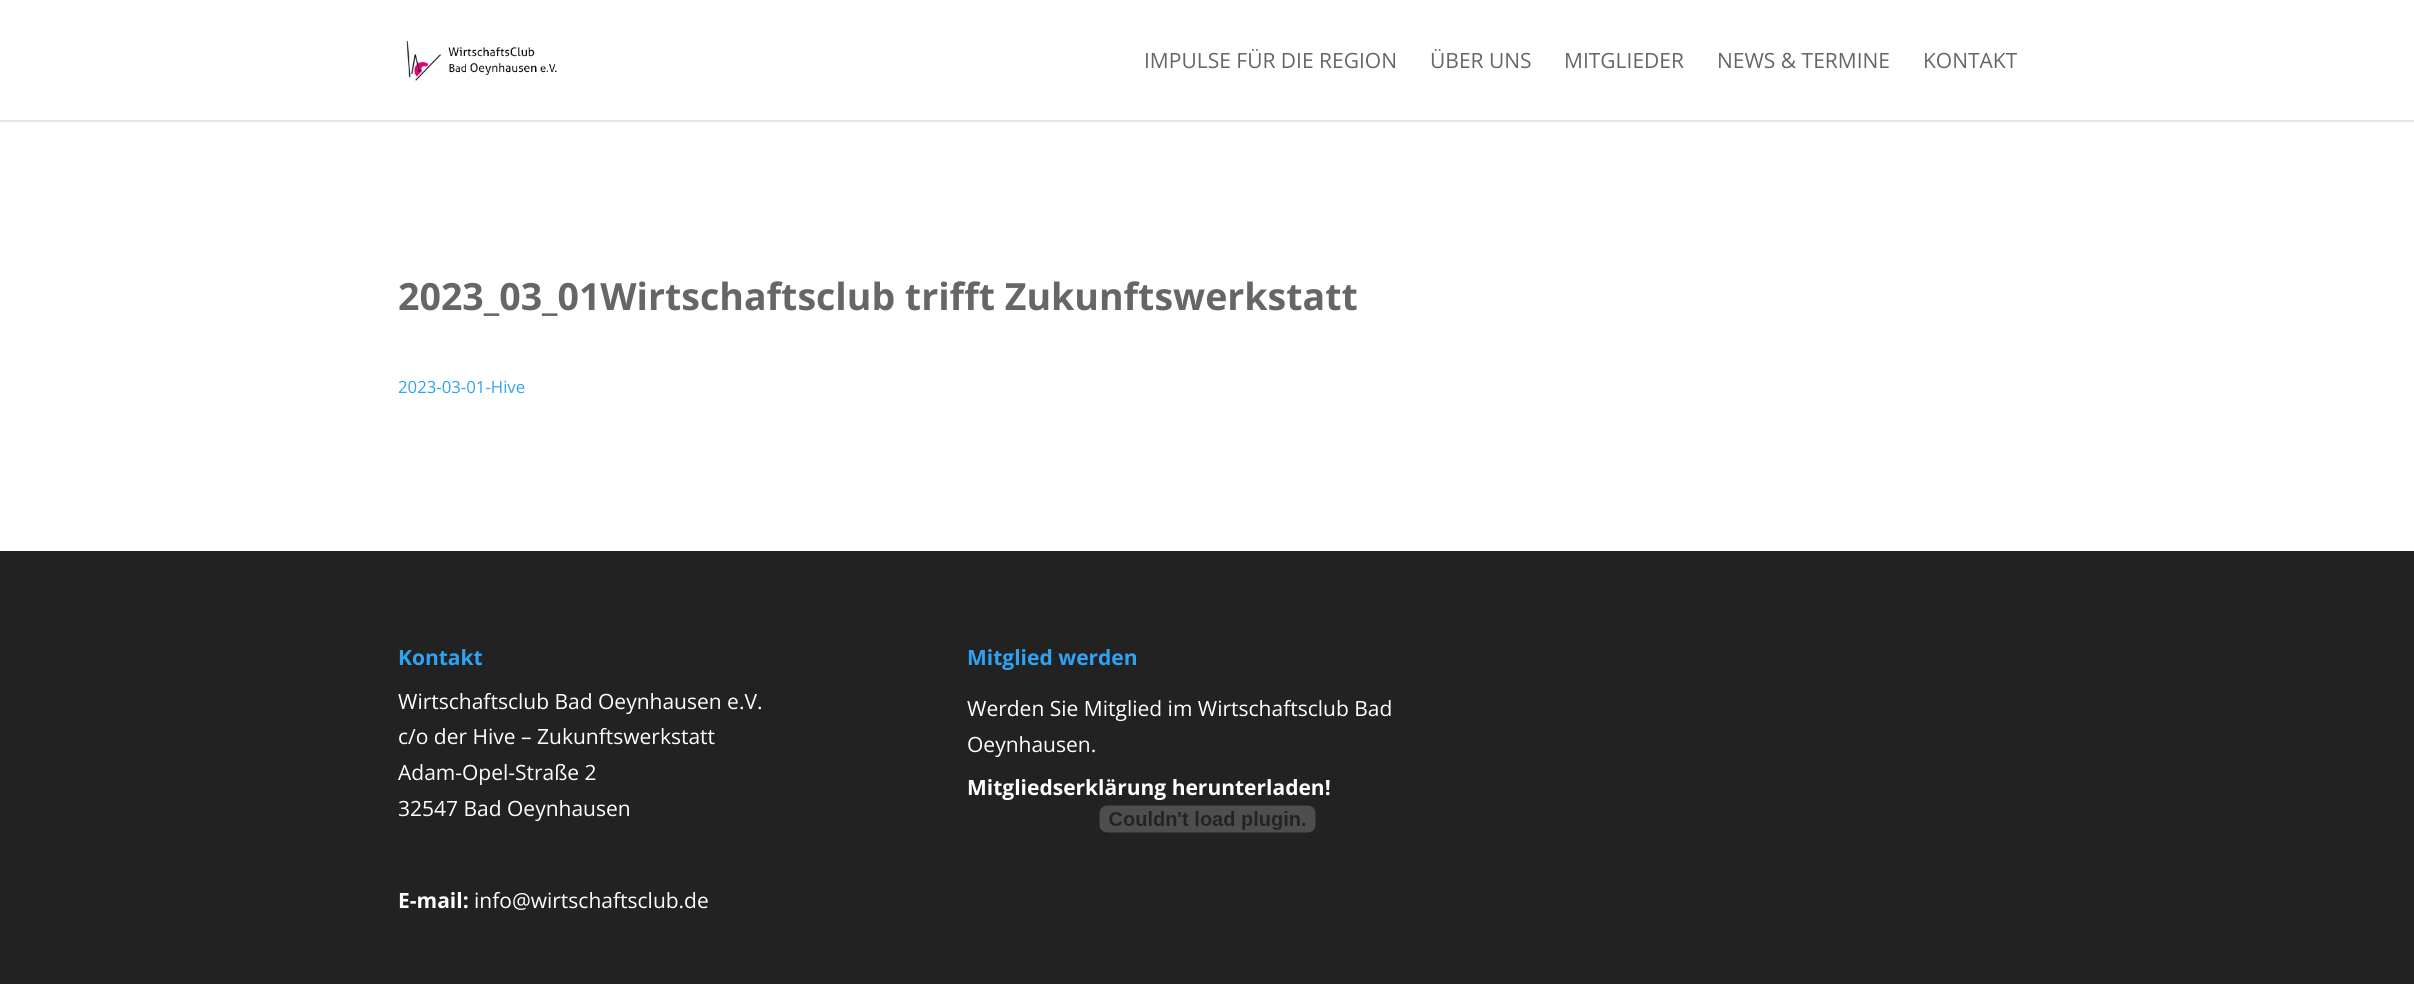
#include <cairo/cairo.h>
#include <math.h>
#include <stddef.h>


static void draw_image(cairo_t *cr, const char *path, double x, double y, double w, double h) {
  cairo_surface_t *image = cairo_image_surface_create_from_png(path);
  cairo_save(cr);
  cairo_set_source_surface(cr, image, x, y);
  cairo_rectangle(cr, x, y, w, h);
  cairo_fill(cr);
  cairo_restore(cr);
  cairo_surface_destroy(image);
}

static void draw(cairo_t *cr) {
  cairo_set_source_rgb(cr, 1, 1, 1);
  cairo_paint(cr);
  cairo_set_source_rgb(cr, 230 / 255.0, 230 / 255.0, 230 / 255.0);
  cairo_rectangle(cr, 0, 120, 2414, 2);
  cairo_fill(cr);
  draw_image(cr, "images/1.png", 406, 41, 151, 40);
  cairo_set_source_rgb(cr, 34 / 255.0, 34 / 255.0, 34 / 255.0);
  cairo_rectangle(cr, 0, 551, 2414, 433);
  cairo_fill(cr);
  draw_image(cr, "images/2.png", 1099, 805, 217, 28);
  cairo_select_font_face(cr, "Open Sans", CAIRO_FONT_SLANT_NORMAL, CAIRO_FONT_WEIGHT_NORMAL);
  cairo_set_font_size(cr, 21);
  cairo_set_source_rgb(cr, 102 / 255.0, 102 / 255.0, 102 / 255.0);
  cairo_move_to(cr, 1144, 68);
  cairo_show_text(cr, "IMPULSE FÜR DIE REGION");
  cairo_move_to(cr, 1430, 68);
  cairo_show_text(cr, "ÜBER UNS");
  cairo_move_to(cr, 1564, 68);
  cairo_show_text(cr, "MITGLIEDER");
  cairo_move_to(cr, 1717, 68);
  cairo_show_text(cr, "NEWS & TERMINE");
  cairo_move_to(cr, 1923, 68);
  cairo_show_text(cr, "KONTAKT");
  cairo_select_font_face(cr, "Open Sans", CAIRO_FONT_SLANT_NORMAL, CAIRO_FONT_WEIGHT_BOLD);
  cairo_set_font_size(cr, 37.5);
  cairo_move_to(cr, 398, 310);
  cairo_show_text(cr, "2023_03_01Wirtschaftsclub trifft Zukunftswerkstatt");
  cairo_select_font_face(cr, "Open Sans", CAIRO_FONT_SLANT_NORMAL, CAIRO_FONT_WEIGHT_NORMAL);
  cairo_set_font_size(cr, 16.75);
  cairo_set_source_rgb(cr, 46 / 255.0, 163 / 255.0, 242 / 255.0);
  cairo_move_to(cr, 398, 393);
  cairo_show_text(cr, "2023-03-01-Hive");
  cairo_select_font_face(cr, "Open Sans", CAIRO_FONT_SLANT_NORMAL, CAIRO_FONT_WEIGHT_BOLD);
  cairo_set_font_size(cr, 21);
  cairo_move_to(cr, 398, 665);
  cairo_show_text(cr, "Kontakt");
  cairo_select_font_face(cr, "Open Sans", CAIRO_FONT_SLANT_NORMAL, CAIRO_FONT_WEIGHT_NORMAL);
  cairo_set_source_rgb(cr, 1, 1, 1);
  cairo_move_to(cr, 398, 709);
  cairo_show_text(cr, "Wirtschaftsclub Bad Oeynhausen e.V.");
  cairo_move_to(cr, 398, 744);
  cairo_show_text(cr, "c/o der Hive – Zukunftswerkstatt");
  cairo_move_to(cr, 398, 780);
  cairo_show_text(cr, "Adam-Opel-Straße 2");
  cairo_move_to(cr, 398, 816);
  cairo_show_text(cr, "32547 Bad Oeynhausen");
  cairo_select_font_face(cr, "Open Sans", CAIRO_FONT_SLANT_NORMAL, CAIRO_FONT_WEIGHT_BOLD);
  cairo_move_to(cr, 398, 908);
  cairo_show_text(cr, "E-mail:");
  cairo_select_font_face(cr, "Open Sans", CAIRO_FONT_SLANT_NORMAL, CAIRO_FONT_WEIGHT_NORMAL);
  cairo_move_to(cr, 474, 908);
  cairo_show_text(cr, "info@wirtschaftsclub.de");
  cairo_select_font_face(cr, "Open Sans", CAIRO_FONT_SLANT_NORMAL, CAIRO_FONT_WEIGHT_BOLD);
  cairo_set_source_rgb(cr, 46 / 255.0, 163 / 255.0, 242 / 255.0);
  cairo_move_to(cr, 967, 665);
  cairo_show_text(cr, "Mitglied werden");
  cairo_select_font_face(cr, "Open Sans", CAIRO_FONT_SLANT_NORMAL, CAIRO_FONT_WEIGHT_NORMAL);
  cairo_set_source_rgb(cr, 1, 1, 1);
  cairo_move_to(cr, 967, 716);
  cairo_show_text(cr, "Werden Sie Mitglied im Wirtschaftsclub Bad");
  cairo_move_to(cr, 967, 752);
  cairo_show_text(cr, "Oeynhausen.");
  cairo_select_font_face(cr, "Open Sans", CAIRO_FONT_SLANT_NORMAL, CAIRO_FONT_WEIGHT_BOLD);
  cairo_move_to(cr, 967, 795);
  cairo_show_text(cr, "Mitgliedserklärung herunterladen!");
}

int main(void) {
  cairo_surface_t *surface = cairo_image_surface_create(CAIRO_FORMAT_RGB24, 2414, 984);
  cairo_t *cr = cairo_create(surface);
  cairo_font_options_t *options = cairo_font_options_create();
  cairo_font_options_set_hint_metrics(options, CAIRO_HINT_METRICS_OFF);
  cairo_font_options_set_hint_style(options, CAIRO_HINT_STYLE_NONE);
  cairo_set_font_options(cr, options);
  cairo_set_miter_limit(cr, 4);
  draw(cr);
  cairo_surface_write_to_png(surface, "out.png");
  cairo_font_options_destroy(options);
  cairo_destroy(cr);
  cairo_surface_destroy(surface);
  return 0;
}
